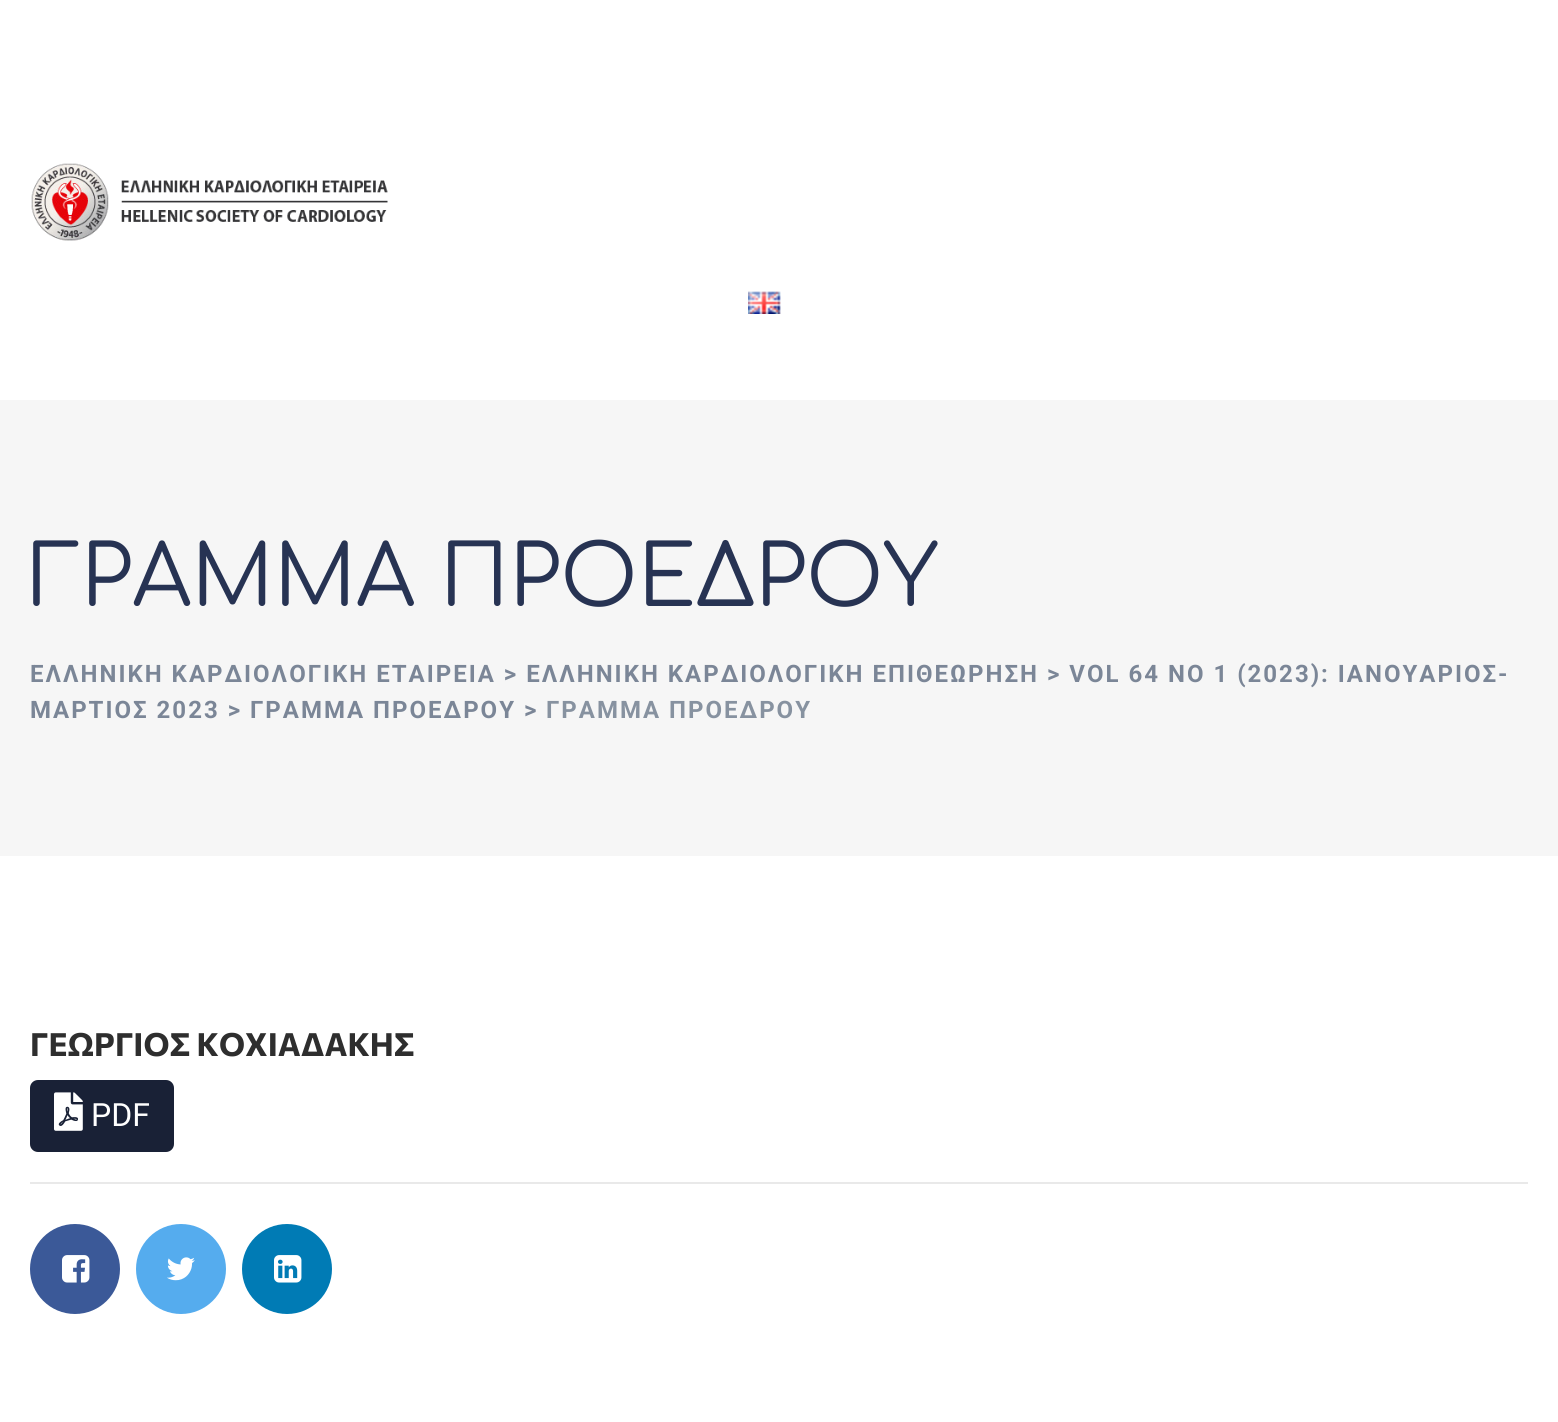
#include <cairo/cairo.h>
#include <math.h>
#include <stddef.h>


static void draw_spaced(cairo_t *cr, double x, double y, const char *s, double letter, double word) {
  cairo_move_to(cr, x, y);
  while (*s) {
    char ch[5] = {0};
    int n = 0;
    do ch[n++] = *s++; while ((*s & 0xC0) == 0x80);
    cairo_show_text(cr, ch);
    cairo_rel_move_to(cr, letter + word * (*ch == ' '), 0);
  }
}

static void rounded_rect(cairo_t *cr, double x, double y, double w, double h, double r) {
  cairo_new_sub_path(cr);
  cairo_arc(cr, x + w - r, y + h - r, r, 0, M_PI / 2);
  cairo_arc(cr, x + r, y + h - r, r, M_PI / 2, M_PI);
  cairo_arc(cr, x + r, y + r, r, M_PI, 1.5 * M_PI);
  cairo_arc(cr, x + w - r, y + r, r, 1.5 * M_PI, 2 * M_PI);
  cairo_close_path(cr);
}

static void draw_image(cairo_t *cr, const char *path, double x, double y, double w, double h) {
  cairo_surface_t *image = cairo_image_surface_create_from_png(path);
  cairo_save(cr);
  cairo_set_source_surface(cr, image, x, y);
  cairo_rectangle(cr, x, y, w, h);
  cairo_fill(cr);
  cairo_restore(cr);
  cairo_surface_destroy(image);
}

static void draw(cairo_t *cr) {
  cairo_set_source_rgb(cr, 1, 1, 1);
  cairo_paint(cr);
  draw_image(cr, "images/1.png", 31, 163, 357, 78);
  draw_image(cr, "images/2.png", 748, 291, 33, 23);
  cairo_set_source_rgb(cr, 246 / 255.0, 246 / 255.0, 246 / 255.0);
  cairo_rectangle(cr, 0, 400, 1558, 456);
  cairo_fill(cr);
  cairo_set_source_rgb(cr, 25 / 255.0, 33 / 255.0, 54 / 255.0);
  rounded_rect(cr, 30, 1080, 144, 72, 8);
  cairo_fill(cr);
  draw_image(cr, "images/3.png", 54, 1092, 29, 39);
  cairo_set_source_rgb(cr, 233 / 255.0, 233 / 255.0, 233 / 255.0);
  cairo_rectangle(cr, 30, 1182, 1498, 2);
  cairo_fill(cr);
  cairo_set_source_rgb(cr, 59 / 255.0, 89 / 255.0, 152 / 255.0);
  cairo_arc(cr, 75, 1269, 45, 0, 2 * M_PI);
  cairo_fill(cr);
  draw_image(cr, "images/4.png", 62, 1255, 28, 28);
  cairo_set_source_rgb(cr, 85 / 255.0, 172 / 255.0, 238 / 255.0);
  cairo_arc(cr, 181, 1269, 45, 0, 2 * M_PI);
  cairo_fill(cr);
  draw_image(cr, "images/5.png", 167, 1257, 28, 24);
  cairo_set_source_rgb(cr, 0, 123 / 255.0, 181 / 255.0);
  cairo_arc(cr, 287, 1269, 45, 0, 2 * M_PI);
  cairo_fill(cr);
  draw_image(cr, "images/6.png", 274, 1255, 28, 28);
  cairo_select_font_face(cr, "Comfortaa", CAIRO_FONT_SLANT_NORMAL, CAIRO_FONT_WEIGHT_NORMAL);
  cairo_set_font_size(cr, 84);
  cairo_set_source_rgb(cr, 39 / 255.0, 51 / 255.0, 83 / 255.0);
  cairo_move_to(cr, 30, 606);
  cairo_show_text(cr, "ΓΡΑΜΜΑ ΠΡΟΕΔΡΟΥ");
  cairo_select_font_face(cr, "Roboto", CAIRO_FONT_SLANT_NORMAL, CAIRO_FONT_WEIGHT_BOLD);
  cairo_set_font_size(cr, 24);
  cairo_set_source_rgb(cr, 123 / 255.0, 134 / 255.0, 151 / 255.0);
  draw_spaced(cr, 30, 682, "ΕΛΛΗΝΙΚΗ ΚΑΡΔΙΟΛΟΓΙΚΗ ΕΤΑΙΡΕΙΑ > ΕΛΛΗΝΙΚΗ ΚΑΡΔΙΟΛΟΓΙΚΗ ΕΠΙΘΕΩΡΗΣΗ > VOL 64 NO 1 (2023): ΙΑΝΟΥΑΡΙΟΣ-", 2, 0);
  draw_spaced(cr, 30, 718, "ΜΑΡΤΙΟΣ 2023 > ΓΡΑΜΜΑ ΠΡΟΕΔΡΟΥ >", 2, 0);
  cairo_set_source_rgb(cr, 135 / 255.0, 146 / 255.0, 160 / 255.0);
  draw_spaced(cr, 546, 718, "ΓΡΑΜΜΑ ΠΡΟΕΔΡΟΥ", 2, 0);
  cairo_select_font_face(cr, "Commissioner", CAIRO_FONT_SLANT_NORMAL, CAIRO_FONT_WEIGHT_BOLD);
  cairo_set_font_size(cr, 32);
  cairo_set_source_rgb(cr, 46 / 255.0, 46 / 255.0, 46 / 255.0);
  cairo_move_to(cr, 30, 1056);
  cairo_show_text(cr, "ΓΕΩΡΓΙΟΣ ΚΟΧΙΑΔΑΚΗΣ");
  cairo_select_font_face(cr, "Roboto", CAIRO_FONT_SLANT_NORMAL, CAIRO_FONT_WEIGHT_NORMAL);
  cairo_set_source_rgb(cr, 1, 1, 1);
  cairo_move_to(cr, 91, 1126);
  cairo_show_text(cr, "PDF");
}

int main(void) {
  cairo_surface_t *surface = cairo_image_surface_create(CAIRO_FORMAT_RGB24, 1558, 1422);
  cairo_t *cr = cairo_create(surface);
  cairo_font_options_t *options = cairo_font_options_create();
  cairo_font_options_set_hint_metrics(options, CAIRO_HINT_METRICS_OFF);
  cairo_font_options_set_hint_style(options, CAIRO_HINT_STYLE_NONE);
  cairo_set_font_options(cr, options);
  cairo_set_miter_limit(cr, 4);
  draw(cr);
  cairo_surface_write_to_png(surface, "out.png");
  cairo_font_options_destroy(options);
  cairo_destroy(cr);
  cairo_surface_destroy(surface);
  return 0;
}
